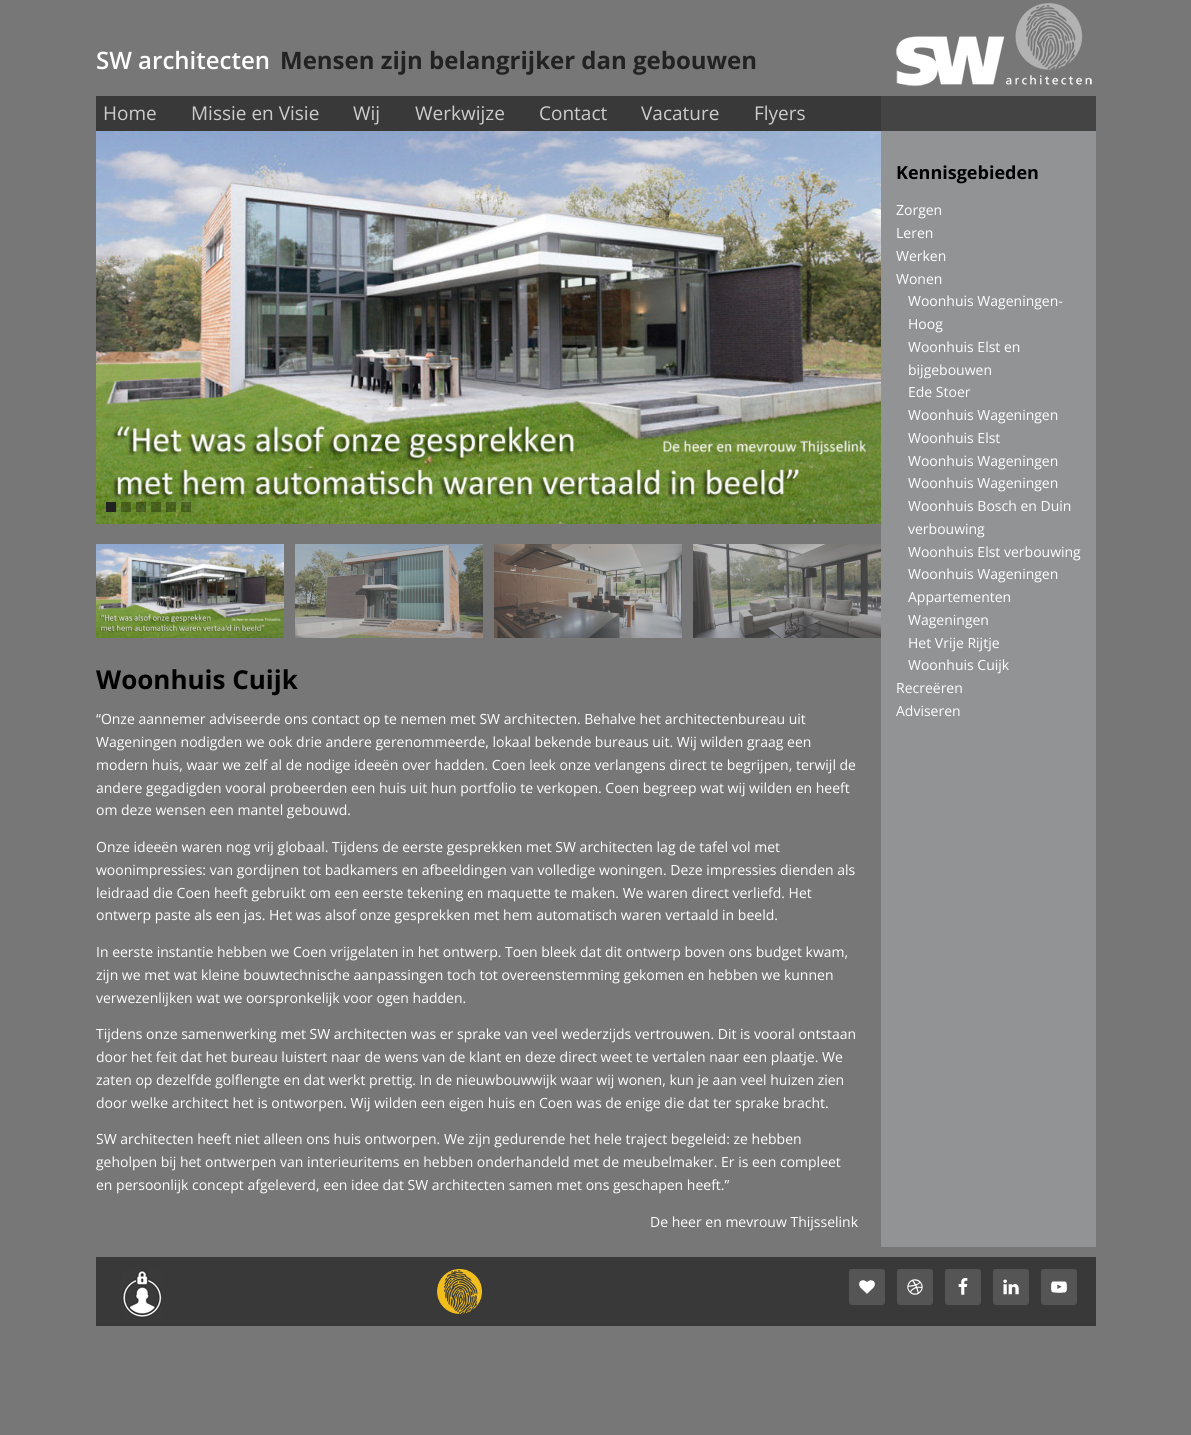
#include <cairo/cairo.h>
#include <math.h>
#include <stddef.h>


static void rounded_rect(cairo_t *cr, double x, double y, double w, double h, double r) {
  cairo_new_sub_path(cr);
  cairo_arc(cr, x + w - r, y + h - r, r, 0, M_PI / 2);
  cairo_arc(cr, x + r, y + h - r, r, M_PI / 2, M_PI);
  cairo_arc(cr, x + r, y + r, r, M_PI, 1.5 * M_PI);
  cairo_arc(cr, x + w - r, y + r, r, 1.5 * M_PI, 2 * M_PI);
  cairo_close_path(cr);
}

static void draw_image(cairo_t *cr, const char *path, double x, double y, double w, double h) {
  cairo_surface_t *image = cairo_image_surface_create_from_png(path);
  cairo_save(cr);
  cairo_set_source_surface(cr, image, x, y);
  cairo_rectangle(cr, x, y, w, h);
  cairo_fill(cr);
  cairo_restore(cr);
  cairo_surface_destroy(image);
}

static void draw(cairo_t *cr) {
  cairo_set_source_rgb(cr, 119 / 255.0, 119 / 255.0, 119 / 255.0);
  cairo_paint(cr);
  cairo_set_source_rgb(cr, 57 / 255.0, 57 / 255.0, 57 / 255.0);
  cairo_rectangle(cr, 96, 96, 785, 35);
  cairo_fill(cr);
  draw_image(cr, "images/1.png", 896, 3, 196, 83);
  cairo_set_source_rgb(cr, 146 / 255.0, 147 / 255.0, 149 / 255.0);
  cairo_rectangle(cr, 881, 131, 215, 1116);
  cairo_fill(cr);
  cairo_set_source_rgb(cr, 68 / 255.0, 68 / 255.0, 69 / 255.0);
  cairo_rectangle(cr, 881, 96, 215, 35);
  cairo_fill(cr);
  draw_image(cr, "images/2.png", 96, 131, 785, 393);
  cairo_set_source_rgb(cr, 34 / 255.0, 34 / 255.0, 34 / 255.0);
  cairo_rectangle(cr, 106, 502, 10, 10);
  cairo_fill(cr);
  cairo_set_source_rgba(cr, 0, 0, 0, 0.3);
  cairo_rectangle(cr, 121, 502, 10, 10);
  cairo_fill(cr);
  cairo_rectangle(cr, 136, 502, 10, 10);
  cairo_fill(cr);
  cairo_rectangle(cr, 151, 502, 10, 10);
  cairo_fill(cr);
  cairo_rectangle(cr, 166, 502, 10, 10);
  cairo_fill(cr);
  cairo_rectangle(cr, 181, 502, 10, 10);
  cairo_fill(cr);
  draw_image(cr, "images/3.png", 96, 544, 188, 94);
  draw_image(cr, "images/4.png", 295, 544, 188, 94);
  draw_image(cr, "images/5.png", 494, 544, 188, 94);
  draw_image(cr, "images/6.png", 693, 544, 188, 94);
  cairo_set_source_rgb(cr, 57 / 255.0, 57 / 255.0, 57 / 255.0);
  cairo_rectangle(cr, 96, 1257, 1000, 69);
  cairo_fill(cr);
  draw_image(cr, "images/7.png", 122, 1270, 40, 48);
  draw_image(cr, "images/8.png", 437, 1269, 45, 45);
  cairo_set_source_rgb(cr, 85 / 255.0, 85 / 255.0, 85 / 255.0);
  rounded_rect(cr, 849, 1269, 36, 36, 3);
  cairo_fill(cr);
  draw_image(cr, "images/9.png", 859, 1280, 16, 14);
  rounded_rect(cr, 897, 1269, 36, 36, 3);
  cairo_fill(cr);
  draw_image(cr, "images/10.png", 907, 1279, 16, 16);
  rounded_rect(cr, 945, 1269, 36, 36, 3);
  cairo_fill(cr);
  draw_image(cr, "images/11.png", 958, 1278, 10, 17);
  rounded_rect(cr, 993, 1269, 36, 36, 3);
  cairo_fill(cr);
  draw_image(cr, "images/12.png", 1003, 1279, 16, 16);
  rounded_rect(cr, 1041, 1269, 36, 36, 3);
  cairo_fill(cr);
  draw_image(cr, "images/13.png", 1051, 1281, 16, 12);
  cairo_select_font_face(cr, "Open Sans SemiBold", CAIRO_FONT_SLANT_NORMAL, CAIRO_FONT_WEIGHT_NORMAL);
  cairo_set_font_size(cr, 24);
  cairo_set_source_rgb(cr, 1, 1, 1);
  cairo_move_to(cr, 96, 69);
  cairo_show_text(cr, "SW architecten");
  cairo_select_font_face(cr, "Open Sans", CAIRO_FONT_SLANT_NORMAL, CAIRO_FONT_WEIGHT_BOLD);
  cairo_set_source_rgb(cr, 34 / 255.0, 34 / 255.0, 34 / 255.0);
  cairo_move_to(cr, 280, 69);
  cairo_show_text(cr, "Mensen zijn belangrijker dan gebouwen");
  cairo_select_font_face(cr, "Open Sans", CAIRO_FONT_SLANT_NORMAL, CAIRO_FONT_WEIGHT_NORMAL);
  cairo_set_font_size(cr, 19);
  cairo_set_source_rgb(cr, 204 / 255.0, 204 / 255.0, 204 / 255.0);
  cairo_move_to(cr, 103, 120);
  cairo_show_text(cr, "Home");
  cairo_move_to(cr, 191, 120);
  cairo_show_text(cr, "Missie en Visie");
  cairo_move_to(cr, 353, 120);
  cairo_show_text(cr, "Wij");
  cairo_move_to(cr, 415, 120);
  cairo_show_text(cr, "Werkwijze");
  cairo_move_to(cr, 539, 120);
  cairo_show_text(cr, "Contact");
  cairo_move_to(cr, 641, 120);
  cairo_show_text(cr, "Vacature");
  cairo_move_to(cr, 754, 120);
  cairo_show_text(cr, "Flyers");
  cairo_select_font_face(cr, "Open Sans", CAIRO_FONT_SLANT_NORMAL, CAIRO_FONT_WEIGHT_BOLD);
  cairo_set_font_size(cr, 18);
  cairo_set_source_rgb(cr, 0, 0, 0);
  cairo_move_to(cr, 896, 179);
  cairo_show_text(cr, "Kennisgebieden");
  cairo_select_font_face(cr, "Open Sans", CAIRO_FONT_SLANT_NORMAL, CAIRO_FONT_WEIGHT_NORMAL);
  cairo_set_font_size(cr, 14);
  cairo_set_source_rgb(cr, 1, 1, 1);
  cairo_move_to(cr, 896, 215);
  cairo_show_text(cr, "Zorgen");
  cairo_move_to(cr, 896, 238);
  cairo_show_text(cr, "Leren");
  cairo_move_to(cr, 896, 261);
  cairo_show_text(cr, "Werken");
  cairo_move_to(cr, 896, 284);
  cairo_show_text(cr, "Wonen");
  cairo_move_to(cr, 908, 306);
  cairo_show_text(cr, "Woonhuis Wageningen-");
  cairo_move_to(cr, 908, 329);
  cairo_show_text(cr, "Hoog");
  cairo_move_to(cr, 908, 352);
  cairo_show_text(cr, "Woonhuis Elst en");
  cairo_move_to(cr, 908, 375);
  cairo_show_text(cr, "bijgebouwen");
  cairo_move_to(cr, 908, 397);
  cairo_show_text(cr, "Ede Stoer");
  cairo_move_to(cr, 908, 420);
  cairo_show_text(cr, "Woonhuis Wageningen");
  cairo_move_to(cr, 908, 443);
  cairo_show_text(cr, "Woonhuis Elst");
  cairo_move_to(cr, 908, 466);
  cairo_show_text(cr, "Woonhuis Wageningen");
  cairo_move_to(cr, 908, 488);
  cairo_show_text(cr, "Woonhuis Wageningen");
  cairo_move_to(cr, 908, 511);
  cairo_show_text(cr, "Woonhuis Bosch en Duin");
  cairo_move_to(cr, 908, 534);
  cairo_show_text(cr, "verbouwing");
  cairo_move_to(cr, 908, 557);
  cairo_show_text(cr, "Woonhuis Elst verbouwing");
  cairo_move_to(cr, 908, 579);
  cairo_show_text(cr, "Woonhuis Wageningen");
  cairo_move_to(cr, 908, 602);
  cairo_show_text(cr, "Appartementen");
  cairo_move_to(cr, 908, 625);
  cairo_show_text(cr, "Wageningen");
  cairo_move_to(cr, 908, 648);
  cairo_show_text(cr, "Het Vrije Rijtje");
  cairo_move_to(cr, 908, 670);
  cairo_show_text(cr, "Woonhuis Cuijk");
  cairo_move_to(cr, 896, 693);
  cairo_show_text(cr, "Recreëren");
  cairo_move_to(cr, 896, 716);
  cairo_show_text(cr, "Adviseren");
  cairo_select_font_face(cr, "Open Sans", CAIRO_FONT_SLANT_NORMAL, CAIRO_FONT_WEIGHT_BOLD);
  cairo_set_font_size(cr, 26);
  cairo_set_source_rgb(cr, 0, 0, 0);
  cairo_move_to(cr, 96, 689);
  cairo_show_text(cr, "Woonhuis Cuijk");
  cairo_select_font_face(cr, "Open Sans", CAIRO_FONT_SLANT_NORMAL, CAIRO_FONT_WEIGHT_NORMAL);
  cairo_set_font_size(cr, 14);
  cairo_set_source_rgb(cr, 1, 1, 1);
  cairo_move_to(cr, 96, 724);
  cairo_show_text(cr, "“Onze aannemer adviseerde ons contact op te nemen met SW architecten. Behalve het architectenbureau uit");
  cairo_move_to(cr, 96, 747);
  cairo_show_text(cr, "Wageningen nodigden we ook drie andere gerenommeerde, lokaal bekende bureaus uit. Wij wilden graag een");
  cairo_move_to(cr, 96, 770);
  cairo_show_text(cr, "modern huis, waar we zelf al de nodige ideeën over hadden. Coen leek onze verlangens direct te begrijpen, terwijl de");
  cairo_move_to(cr, 96, 793);
  cairo_show_text(cr, "andere gegadigden vooral probeerden een huis uit hun portfolio te verkopen. Coen begreep wat wij wilden en heeft");
  cairo_move_to(cr, 96, 815);
  cairo_show_text(cr, "om deze wensen een mantel gebouwd.");
  cairo_move_to(cr, 96, 852);
  cairo_show_text(cr, "Onze ideeën waren nog vrij globaal. Tijdens de eerste gesprekken met SW architecten lag de tafel vol met");
  cairo_move_to(cr, 96, 875);
  cairo_show_text(cr, "woonimpressies: van gordijnen tot badkamers en afbeeldingen van volledige woningen. Deze impressies dienden als");
  cairo_move_to(cr, 96, 898);
  cairo_show_text(cr, "leidraad die Coen heeft gebruikt om een eerste tekening en maquette te maken. We waren direct verliefd. Het");
  cairo_move_to(cr, 96, 920);
  cairo_show_text(cr, "ontwerp paste als een jas. Het was alsof onze gesprekken met hem automatisch waren vertaald in beeld.");
  cairo_move_to(cr, 96, 957);
  cairo_show_text(cr, "In eerste instantie hebben we Coen vrijgelaten in het ontwerp. Toen bleek dat dit ontwerp boven ons budget kwam,");
  cairo_move_to(cr, 96, 980);
  cairo_show_text(cr, "zijn we met wat kleine bouwtechnische aanpassingen toch tot overeenstemming gekomen en hebben we kunnen");
  cairo_move_to(cr, 96, 1003);
  cairo_show_text(cr, "verwezenlijken wat we oorspronkelijk voor ogen hadden.");
  cairo_move_to(cr, 96, 1039);
  cairo_show_text(cr, "Tijdens onze samenwerking met SW architecten was er sprake van veel wederzijds vertrouwen. Dit is vooral ontstaan");
  cairo_move_to(cr, 96, 1062);
  cairo_show_text(cr, "door het feit dat het bureau luistert naar de wens van de klant en deze direct weet te vertalen naar een plaatje. We");
  cairo_move_to(cr, 96, 1085);
  cairo_show_text(cr, "zaten op dezelfde golflengte en dat werkt prettig. In de nieuwbouwwijk waar wij wonen, kun je aan veel huizen zien");
  cairo_move_to(cr, 96, 1108);
  cairo_show_text(cr, "door welke architect het is ontworpen. Wij wilden een eigen huis en Coen was de enige die dat ter sprake bracht.");
  cairo_move_to(cr, 96, 1144);
  cairo_show_text(cr, "SW architecten heeft niet alleen ons huis ontworpen. We zijn gedurende het hele traject begeleid: ze hebben");
  cairo_move_to(cr, 96, 1167);
  cairo_show_text(cr, "geholpen bij het ontwerpen van interieuritems en hebben onderhandeld met de meubelmaker. Er is een compleet");
  cairo_move_to(cr, 96, 1190);
  cairo_show_text(cr, "en persoonlijk concept afgeleverd, een idee dat SW architecten samen met ons geschapen heeft.”");
  cairo_move_to(cr, 650, 1227);
  cairo_show_text(cr, "De heer en mevrouw Thijsselink");
}

int main(void) {
  cairo_surface_t *surface = cairo_image_surface_create(CAIRO_FORMAT_RGB24, 1191, 1435);
  cairo_t *cr = cairo_create(surface);
  cairo_font_options_t *options = cairo_font_options_create();
  cairo_font_options_set_hint_metrics(options, CAIRO_HINT_METRICS_OFF);
  cairo_font_options_set_hint_style(options, CAIRO_HINT_STYLE_NONE);
  cairo_set_font_options(cr, options);
  cairo_set_miter_limit(cr, 4);
  draw(cr);
  cairo_surface_write_to_png(surface, "out.png");
  cairo_font_options_destroy(options);
  cairo_destroy(cr);
  cairo_surface_destroy(surface);
  return 0;
}
